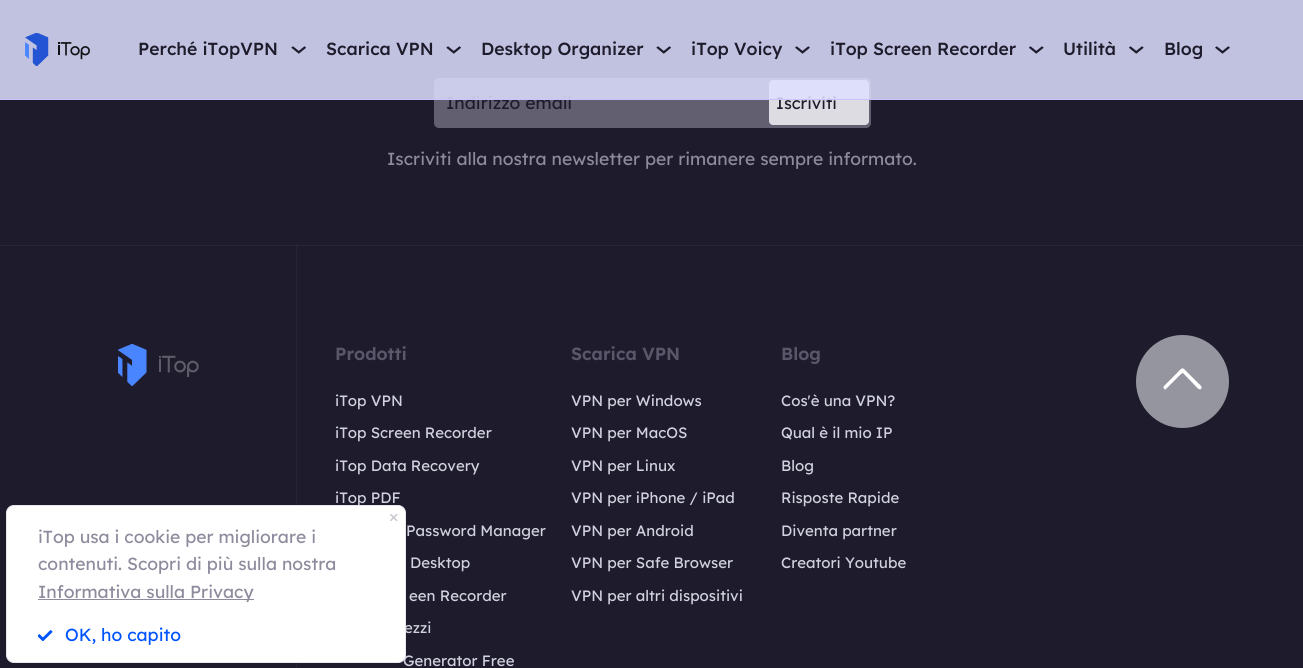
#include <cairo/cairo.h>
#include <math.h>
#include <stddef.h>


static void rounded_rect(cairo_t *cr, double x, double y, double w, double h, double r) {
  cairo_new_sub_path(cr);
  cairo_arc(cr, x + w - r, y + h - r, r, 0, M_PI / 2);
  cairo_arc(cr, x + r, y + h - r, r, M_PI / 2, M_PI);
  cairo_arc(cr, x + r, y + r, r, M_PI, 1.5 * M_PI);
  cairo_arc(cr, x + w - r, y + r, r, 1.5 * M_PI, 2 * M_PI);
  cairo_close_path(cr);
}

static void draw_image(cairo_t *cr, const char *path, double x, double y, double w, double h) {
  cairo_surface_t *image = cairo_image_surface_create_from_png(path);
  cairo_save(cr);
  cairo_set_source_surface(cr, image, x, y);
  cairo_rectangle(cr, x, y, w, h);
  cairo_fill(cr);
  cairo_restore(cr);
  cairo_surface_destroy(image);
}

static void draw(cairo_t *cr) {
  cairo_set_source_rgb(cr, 30 / 255.0, 28 / 255.0, 44 / 255.0);
  cairo_paint(cr);
  cairo_set_source_rgb(cr, 41 / 255.0, 39 / 255.0, 55 / 255.0);
  cairo_rectangle(cr, 0, 245, 1303, 1);
  cairo_fill(cr);
  cairo_set_source_rgb(cr, 97 / 255.0, 95 / 255.0, 112 / 255.0);
  rounded_rect(cr, 434, 78, 437, 50, 5);
  cairo_fill(cr);
  cairo_set_source_rgb(cr, 221 / 255.0, 220 / 255.0, 226 / 255.0);
  rounded_rect(cr, 769, 80, 100, 45, 4);
  cairo_fill(cr);
  cairo_set_source_rgb(cr, 38 / 255.0, 36 / 255.0, 53 / 255.0);
  cairo_rectangle(cr, 296, 246, 1, 422);
  cairo_fill(cr);
  draw_image(cr, "images/7.png", 118, 344, 81, 42);
  cairo_set_source_rgb(cr, 149 / 255.0, 149 / 255.0, 160 / 255.0);
  cairo_arc(cr, 1182.5, 381.5, 46.5, 0, 2 * M_PI);
  cairo_fill(cr);
  cairo_set_source_rgb(cr, 1, 1, 1);
  cairo_new_path(cr);
  cairo_move_to(cr, 1164, 386);
  cairo_line_to(cr, 1178, 372);
  cairo_curve_to(cr, 1178.5, 371.5, 1180.5, 368.5, 1182.5, 368.5);
  cairo_line_to(cr, 1183.5, 369.5);
  cairo_curve_to(cr, 1185, 371.5, 1181.5, 374, 1180.5, 374.5);
  cairo_line_to(cr, 1166, 389);
  cairo_curve_to(cr, 1164.5, 390.5, 1162.5, 387.5, 1164, 386);
  cairo_close_path(cr);
  cairo_fill(cr);
  cairo_new_path(cr);
  cairo_move_to(cr, 1184, 369);
  cairo_line_to(cr, 1198.5, 383.5);
  cairo_curve_to(cr, 1199, 384, 1202, 386, 1201.5, 388);
  cairo_line_to(cr, 1201, 389);
  cairo_curve_to(cr, 1199, 390.5, 1196.5, 387, 1195.5, 386);
  cairo_line_to(cr, 1181.5, 371.5);
  cairo_curve_to(cr, 1180, 369.5, 1182.5, 367.5, 1184, 369);
  cairo_close_path(cr);
  cairo_fill(cr);
  cairo_select_font_face(cr, "Lexend", CAIRO_FONT_SLANT_NORMAL, CAIRO_FONT_WEIGHT_NORMAL);
  cairo_set_font_size(cr, 17.5);
  cairo_set_source_rgb(cr, 30 / 255.0, 28 / 255.0, 44 / 255.0);
  cairo_move_to(cr, 446, 109);
  cairo_show_text(cr, "Indirizzo email");
  cairo_set_font_size(cr, 16.5);
  cairo_move_to(cr, 776, 109);
  cairo_show_text(cr, "Iscriviti");
  cairo_set_source_rgba(cr, 222 / 255.0, 223 / 255.0, 1, 0.85);
  cairo_rectangle(cr, 0, 0, 1303, 99);
  cairo_fill(cr);
  draw_image(cr, "images/5.png", 1215, 46, 15, 8);
  cairo_select_font_face(cr, "Lexend Medium", CAIRO_FONT_SLANT_NORMAL, CAIRO_FONT_WEIGHT_NORMAL);
  cairo_set_font_size(cr, 17.5);
  cairo_set_source_rgb(cr, 30 / 255.0, 28 / 255.0, 44 / 255.0);
  cairo_move_to(cr, 1164, 55);
  cairo_show_text(cr, "Blog");
  draw_image(cr, "images/6.png", 1129, 46, 15, 8);
  cairo_move_to(cr, 1063, 55);
  cairo_show_text(cr, "Utilità");
  draw_image(cr, "images/6.png", 1029, 46, 15, 8);
  cairo_move_to(cr, 830, 55);
  cairo_show_text(cr, "iTop Screen Recorder");
  draw_image(cr, "images/5.png", 795, 46, 15, 8);
  cairo_move_to(cr, 691, 55);
  cairo_show_text(cr, "iTop Voicy");
  draw_image(cr, "images/4.png", 656, 46, 15, 8);
  cairo_move_to(cr, 481, 55);
  cairo_show_text(cr, "Desktop Organizer");
  draw_image(cr, "images/3.png", 446, 46, 15, 8);
  cairo_move_to(cr, 326, 55);
  cairo_show_text(cr, "Scarica VPN");
  draw_image(cr, "images/2.png", 291, 46, 15, 8);
  cairo_move_to(cr, 138, 55);
  cairo_show_text(cr, "Perché iTopVPN");
  draw_image(cr, "images/1.png", 25, 33, 65, 33);
  cairo_set_source_rgb(cr, 203 / 255.0, 194 / 255.0, 1);
  cairo_rectangle(cr, 0, 99, 1303, 1);
  cairo_fill(cr);
  cairo_select_font_face(cr, "Lexend", CAIRO_FONT_SLANT_NORMAL, CAIRO_FONT_WEIGHT_NORMAL);
  cairo_set_source_rgb(cr, 142 / 255.0, 139 / 255.0, 157 / 255.0);
  cairo_move_to(cr, 387, 165);
  cairo_show_text(cr, "Iscriviti alla nostra newsletter per rimanere sempre informato.");
  cairo_select_font_face(cr, "Lexend SemiBold", CAIRO_FONT_SLANT_NORMAL, CAIRO_FONT_WEIGHT_NORMAL);
  cairo_set_source_rgb(cr, 90 / 255.0, 87 / 255.0, 107 / 255.0);
  cairo_move_to(cr, 335, 360);
  cairo_show_text(cr, "Prodotti");
  cairo_select_font_face(cr, "Lexend", CAIRO_FONT_SLANT_NORMAL, CAIRO_FONT_WEIGHT_NORMAL);
  cairo_set_font_size(cr, 15);
  cairo_set_source_rgb(cr, 209 / 255.0, 210 / 255.0, 223 / 255.0);
  cairo_move_to(cr, 335, 406);
  cairo_show_text(cr, "iTop VPN");
  cairo_move_to(cr, 335, 438);
  cairo_show_text(cr, "iTop Screen Recorder");
  cairo_move_to(cr, 335, 471);
  cairo_show_text(cr, "iTop Data Recovery");
  cairo_move_to(cr, 335, 503);
  cairo_show_text(cr, "iTop PDF");
  cairo_move_to(cr, 406, 536);
  cairo_show_text(cr, "Password Manager");
  cairo_move_to(cr, 410, 568);
  cairo_show_text(cr, "Desktop");
  cairo_move_to(cr, 409, 601);
  cairo_show_text(cr, "een Recorder");
  cairo_move_to(cr, 404, 633);
  cairo_show_text(cr, "ezzi");
  cairo_move_to(cr, 403, 666);
  cairo_show_text(cr, "Generator Free");
  cairo_select_font_face(cr, "Lexend SemiBold", CAIRO_FONT_SLANT_NORMAL, CAIRO_FONT_WEIGHT_NORMAL);
  cairo_set_font_size(cr, 17.5);
  cairo_set_source_rgb(cr, 90 / 255.0, 87 / 255.0, 107 / 255.0);
  cairo_move_to(cr, 571, 360);
  cairo_show_text(cr, "Scarica VPN");
  cairo_select_font_face(cr, "Lexend", CAIRO_FONT_SLANT_NORMAL, CAIRO_FONT_WEIGHT_NORMAL);
  cairo_set_font_size(cr, 15);
  cairo_set_source_rgb(cr, 209 / 255.0, 210 / 255.0, 223 / 255.0);
  cairo_move_to(cr, 571, 406);
  cairo_show_text(cr, "VPN per Windows");
  cairo_move_to(cr, 571, 438);
  cairo_show_text(cr, "VPN per MacOS");
  cairo_move_to(cr, 571, 471);
  cairo_show_text(cr, "VPN per Linux");
  cairo_move_to(cr, 571, 503);
  cairo_show_text(cr, "VPN per iPhone / iPad");
  cairo_move_to(cr, 571, 536);
  cairo_show_text(cr, "VPN per Android");
  cairo_move_to(cr, 571, 568);
  cairo_show_text(cr, "VPN per Safe Browser");
  cairo_move_to(cr, 571, 601);
  cairo_show_text(cr, "VPN per altri dispositivi");
  cairo_select_font_face(cr, "Lexend SemiBold", CAIRO_FONT_SLANT_NORMAL, CAIRO_FONT_WEIGHT_NORMAL);
  cairo_set_font_size(cr, 17.5);
  cairo_set_source_rgb(cr, 90 / 255.0, 87 / 255.0, 107 / 255.0);
  cairo_move_to(cr, 781, 360);
  cairo_show_text(cr, "Blog");
  cairo_select_font_face(cr, "Lexend", CAIRO_FONT_SLANT_NORMAL, CAIRO_FONT_WEIGHT_NORMAL);
  cairo_set_font_size(cr, 15);
  cairo_set_source_rgb(cr, 209 / 255.0, 210 / 255.0, 223 / 255.0);
  cairo_move_to(cr, 781, 406);
  cairo_show_text(cr, "Cos'è una VPN?");
  cairo_move_to(cr, 781, 438);
  cairo_show_text(cr, "Qual è il mio IP");
  cairo_move_to(cr, 781, 471);
  cairo_show_text(cr, "Blog");
  cairo_move_to(cr, 781, 503);
  cairo_show_text(cr, "Risposte Rapide");
  cairo_move_to(cr, 781, 536);
  cairo_show_text(cr, "Diventa partner");
  cairo_move_to(cr, 781, 568);
  cairo_show_text(cr, "Creatori Youtube");
  cairo_set_source_rgb(cr, 1, 1, 1);
  rounded_rect(cr, 6.5, 505.5, 399, 157, 7.5);
  cairo_fill_preserve(cr);
  cairo_set_source_rgb(cr, 233 / 255.0, 232 / 255.0, 239 / 255.0);
  cairo_set_line_width(cr, 1);
  cairo_stroke(cr);
  draw_image(cr, "images/8.png", 390, 514, 8, 7);
  cairo_set_font_size(cr, 17.5);
  cairo_set_source_rgb(cr, 142 / 255.0, 139 / 255.0, 157 / 255.0);
  cairo_move_to(cr, 38, 543);
  cairo_show_text(cr, "iTop usa i cookie per migliorare i");
  cairo_move_to(cr, 38, 570);
  cairo_show_text(cr, "contenuti. Scopri di più sulla nostra");
  cairo_rectangle(cr, 38, 599, 216, 1);
  cairo_fill(cr);
  cairo_move_to(cr, 38, 598);
  cairo_show_text(cr, "Informativa sulla Privacy");
  draw_image(cr, "images/9.png", 38, 630, 15, 11);
  cairo_set_source_rgb(cr, 0, 84 / 255.0, 1);
  cairo_move_to(cr, 65, 641);
  cairo_show_text(cr, "OK, ho capito");
}

int main(void) {
  cairo_surface_t *surface = cairo_image_surface_create(CAIRO_FORMAT_RGB24, 1303, 668);
  cairo_t *cr = cairo_create(surface);
  cairo_font_options_t *options = cairo_font_options_create();
  cairo_font_options_set_hint_metrics(options, CAIRO_HINT_METRICS_OFF);
  cairo_font_options_set_hint_style(options, CAIRO_HINT_STYLE_NONE);
  cairo_set_font_options(cr, options);
  cairo_set_miter_limit(cr, 4);
  draw(cr);
  cairo_surface_write_to_png(surface, "out.png");
  cairo_font_options_destroy(options);
  cairo_destroy(cr);
  cairo_surface_destroy(surface);
  return 0;
}
